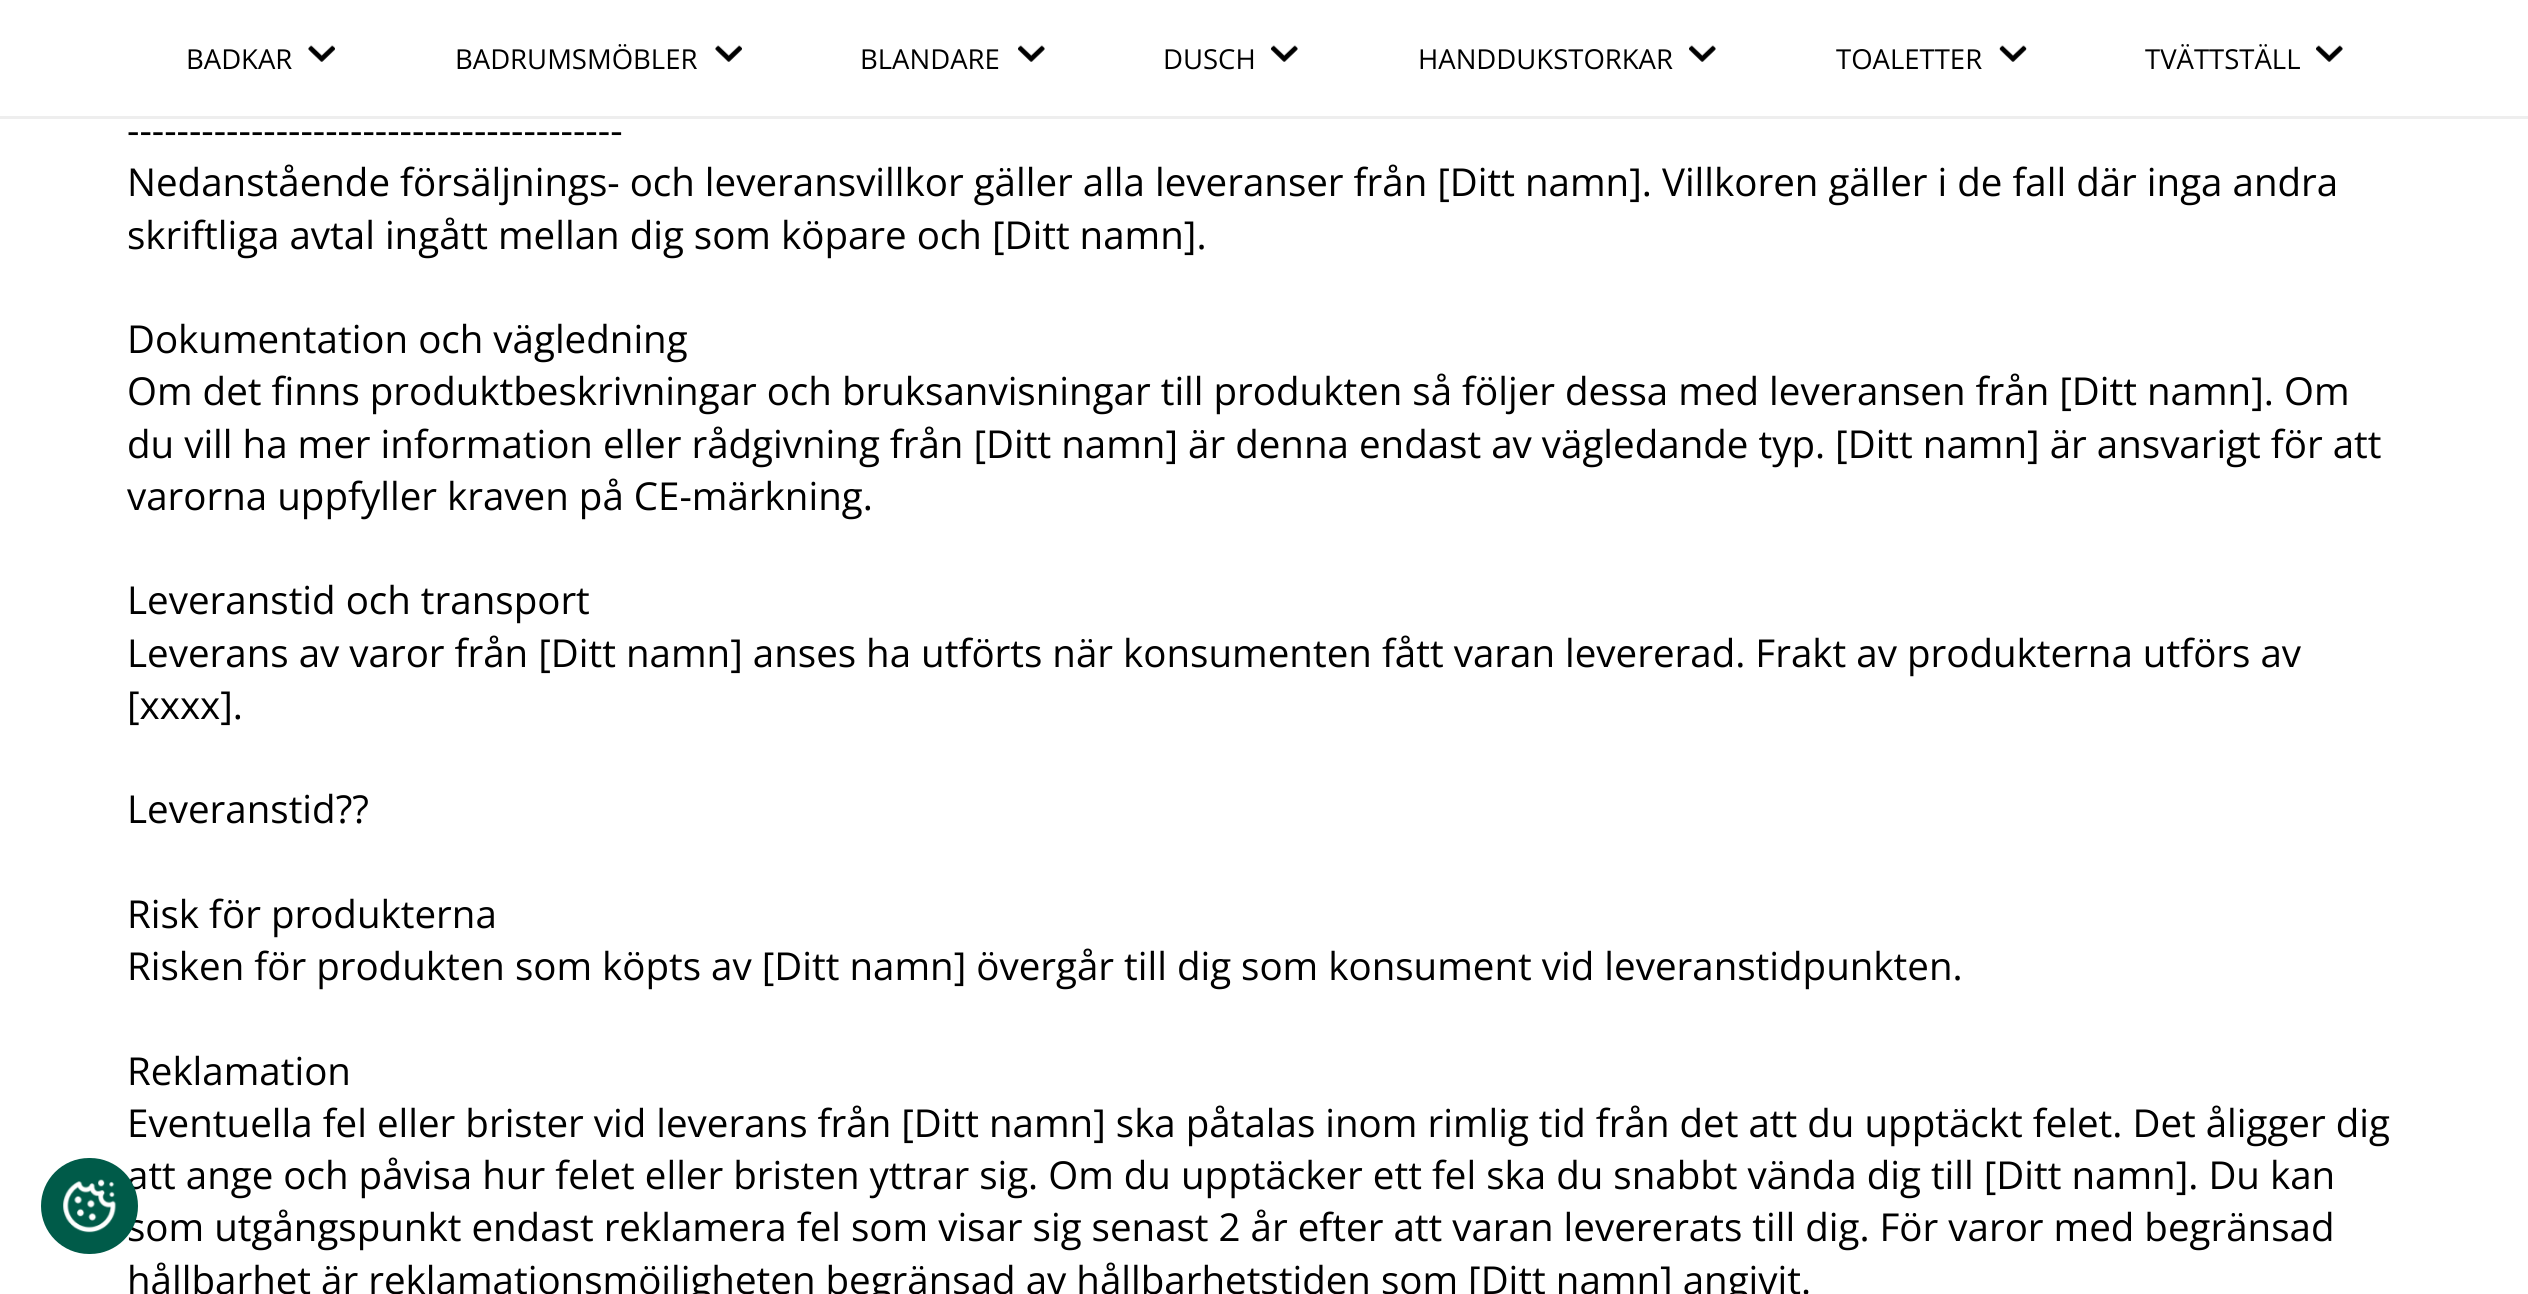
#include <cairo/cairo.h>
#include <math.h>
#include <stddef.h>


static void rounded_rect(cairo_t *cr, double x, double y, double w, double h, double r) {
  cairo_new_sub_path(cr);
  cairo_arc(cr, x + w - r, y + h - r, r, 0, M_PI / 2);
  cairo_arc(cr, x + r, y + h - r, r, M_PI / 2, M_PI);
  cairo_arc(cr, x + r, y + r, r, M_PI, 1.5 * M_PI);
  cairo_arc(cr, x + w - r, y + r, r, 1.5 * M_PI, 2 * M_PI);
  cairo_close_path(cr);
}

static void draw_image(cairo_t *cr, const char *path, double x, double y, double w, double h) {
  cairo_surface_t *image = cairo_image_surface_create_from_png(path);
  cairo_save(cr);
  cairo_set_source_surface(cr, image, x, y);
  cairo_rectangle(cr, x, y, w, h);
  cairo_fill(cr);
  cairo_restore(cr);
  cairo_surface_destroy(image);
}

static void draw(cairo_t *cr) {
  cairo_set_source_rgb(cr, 1, 1, 1);
  cairo_paint(cr);
  cairo_set_source_rgb(cr, 238 / 255.0, 238 / 255.0, 238 / 255.0);
  cairo_rectangle(cr, 0, 116, 2528, 3);
  cairo_fill(cr);
  draw_image(cr, "images/2.png", 308, 45, 27, 17);
  draw_image(cr, "images/2.png", 715, 45, 27, 17);
  draw_image(cr, "images/3.png", 1018, 45, 27, 17);
  draw_image(cr, "images/3.png", 1271, 45, 27, 17);
  draw_image(cr, "images/3.png", 1689, 45, 27, 17);
  draw_image(cr, "images/4.png", 1999, 45, 28, 17);
  draw_image(cr, "images/3.png", 2316, 45, 27, 17);
  cairo_select_font_face(cr, "Open Sans", CAIRO_FONT_SLANT_NORMAL, CAIRO_FONT_WEIGHT_NORMAL);
  cairo_set_font_size(cr, 27.5);
  cairo_set_source_rgb(cr, 0, 0, 0);
  cairo_move_to(cr, 186, 69);
  cairo_show_text(cr, "BADKAR");
  cairo_move_to(cr, 455, 69);
  cairo_show_text(cr, "BADRUMSMÖBLER");
  cairo_move_to(cr, 860, 69);
  cairo_show_text(cr, "BLANDARE");
  cairo_move_to(cr, 1163, 69);
  cairo_show_text(cr, "DUSCH");
  cairo_move_to(cr, 1418, 69);
  cairo_show_text(cr, "HANDDUKSTORKAR");
  cairo_move_to(cr, 1836, 69);
  cairo_show_text(cr, "TOALETTER");
  cairo_move_to(cr, 2145, 69);
  cairo_show_text(cr, "TVÄTTSTÄLL");
  cairo_set_font_size(cr, 38.5);
  cairo_move_to(cr, 127, 144);
  cairo_show_text(cr, "----------------------------------------");
  cairo_move_to(cr, 127, 196);
  cairo_show_text(cr, "Nedanstående försäljnings- och leveransvillkor gäller alla leveranser från [Ditt namn]. Villkoren gäller i de fall där inga andra");
  cairo_move_to(cr, 127, 249);
  cairo_show_text(cr, "skriftliga avtal ingått mellan dig som köpare och [Ditt namn].");
  cairo_move_to(cr, 127, 353);
  cairo_show_text(cr, "Dokumentation och vägledning");
  cairo_move_to(cr, 127, 405);
  cairo_show_text(cr, "Om det finns produktbeskrivningar och bruksanvisningar till produkten så följer dessa med leveransen från [Ditt namn]. Om");
  cairo_move_to(cr, 127, 458);
  cairo_show_text(cr, "du vill ha mer information eller rådgivning från [Ditt namn] är denna endast av vägledande typ. [Ditt namn] är ansvarigt för att");
  cairo_move_to(cr, 127, 510);
  cairo_show_text(cr, "varorna uppfyller kraven på CE-märkning.");
  cairo_move_to(cr, 127, 614);
  cairo_show_text(cr, "Leveranstid och transport");
  cairo_move_to(cr, 127, 667);
  cairo_show_text(cr, "Leverans av varor från [Ditt namn] anses ha utförts när konsumenten fått varan levererad. Frakt av produkterna utförs av");
  cairo_move_to(cr, 127, 719);
  cairo_show_text(cr, "[xxxx].");
  cairo_move_to(cr, 127, 823);
  cairo_show_text(cr, "Leveranstid?\077");
  cairo_move_to(cr, 127, 928);
  cairo_show_text(cr, "Risk för produkterna");
  cairo_move_to(cr, 127, 980);
  cairo_show_text(cr, "Risken för produkten som köpts av [Ditt namn] övergår till dig som konsument vid leveranstidpunkten.");
  cairo_move_to(cr, 127, 1085);
  cairo_show_text(cr, "Reklamation");
  cairo_move_to(cr, 127, 1137);
  cairo_show_text(cr, "Eventuella fel eller brister vid leverans från [Ditt namn] ska påtalas inom rimlig tid från det att du upptäckt felet. Det åligger dig");
  cairo_move_to(cr, 127, 1189);
  cairo_show_text(cr, "att ange och påvisa hur felet eller bristen yttrar sig. Om du upptäcker ett fel ska du snabbt vända dig till [Ditt namn]. Du kan");
  cairo_move_to(cr, 127, 1241);
  cairo_show_text(cr, "som utgångspunkt endast reklamera fel som visar sig senast 2 år efter att varan levererats till dig. För varor med begränsad");
  cairo_set_source_rgb(cr, 0, 91 / 255.0, 73 / 255.0);
  rounded_rect(cr, 41, 1158, 97, 96, 48);
  cairo_fill(cr);
  draw_image(cr, "images/1.png", 63, 1179, 54, 54);
  cairo_set_source_rgb(cr, 0, 0, 0);
  cairo_move_to(cr, 127, 1294);
  cairo_show_text(cr, "hållbarhet är reklamationsmöjligheten begränsad av hållbarhetstiden som [Ditt namn] angivit.");
}

int main(void) {
  cairo_surface_t *surface = cairo_image_surface_create(CAIRO_FORMAT_RGB24, 2528, 1294);
  cairo_t *cr = cairo_create(surface);
  cairo_font_options_t *options = cairo_font_options_create();
  cairo_font_options_set_hint_metrics(options, CAIRO_HINT_METRICS_OFF);
  cairo_font_options_set_hint_style(options, CAIRO_HINT_STYLE_NONE);
  cairo_set_font_options(cr, options);
  cairo_set_miter_limit(cr, 4);
  draw(cr);
  cairo_surface_write_to_png(surface, "out.png");
  cairo_font_options_destroy(options);
  cairo_destroy(cr);
  cairo_surface_destroy(surface);
  return 0;
}
